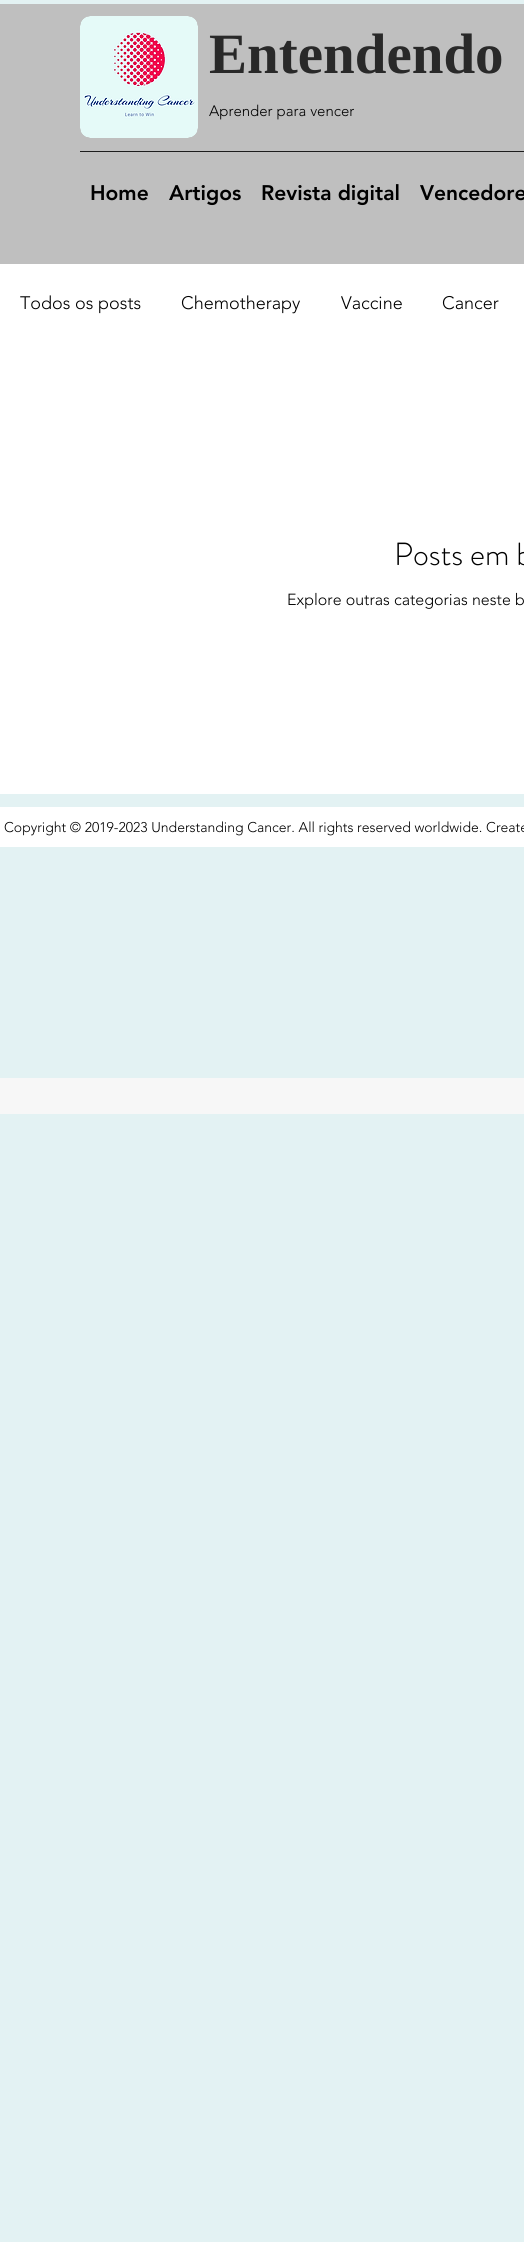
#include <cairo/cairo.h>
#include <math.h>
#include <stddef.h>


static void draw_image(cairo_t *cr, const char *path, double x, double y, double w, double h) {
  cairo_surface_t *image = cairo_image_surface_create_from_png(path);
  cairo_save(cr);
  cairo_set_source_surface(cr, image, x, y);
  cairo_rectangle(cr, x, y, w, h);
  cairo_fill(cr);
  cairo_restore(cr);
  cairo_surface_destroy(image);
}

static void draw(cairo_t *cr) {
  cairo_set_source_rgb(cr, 227 / 255.0, 242 / 255.0, 243 / 255.0);
  cairo_paint(cr);
  cairo_set_source_rgb(cr, 191 / 255.0, 191 / 255.0, 191 / 255.0);
  cairo_rectangle(cr, 0, 4, 524, 260);
  cairo_fill(cr);
  draw_image(cr, "images/1.png", 80, 16, 118, 122);
  cairo_set_source_rgb(cr, 29 / 255.0, 29 / 255.0, 29 / 255.0);
  cairo_rectangle(cr, 80, 151, 444, 1);
  cairo_fill(cr);
  cairo_set_source_rgb(cr, 1, 1, 1);
  cairo_rectangle(cr, 0, 264, 524, 530);
  cairo_fill(cr);
  cairo_rectangle(cr, 0, 807, 524, 40);
  cairo_fill(cr);
  cairo_set_source_rgb(cr, 247 / 255.0, 247 / 255.0, 247 / 255.0);
  cairo_rectangle(cr, 0, 1078, 524, 36);
  cairo_fill(cr);
  cairo_select_font_face(cr, "Liberation Serif", CAIRO_FONT_SLANT_NORMAL, CAIRO_FONT_WEIGHT_BOLD);
  cairo_set_font_size(cr, 57);
  cairo_set_source_rgb(cr, 41 / 255.0, 41 / 255.0, 41 / 255.0);
  cairo_move_to(cr, 209, 73);
  cairo_show_text(cr, "Entendendo");
  cairo_select_font_face(cr, "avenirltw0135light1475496 Light", CAIRO_FONT_SLANT_NORMAL, CAIRO_FONT_WEIGHT_NORMAL);
  cairo_set_font_size(cr, 15);
  cairo_set_source_rgb(cr, 0, 0, 0);
  cairo_move_to(cr, 209, 116);
  cairo_show_text(cr, "Aprender para vencer");
  cairo_select_font_face(cr, "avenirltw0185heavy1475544 Black", CAIRO_FONT_SLANT_NORMAL, CAIRO_FONT_WEIGHT_NORMAL);
  cairo_set_font_size(cr, 21);
  cairo_move_to(cr, 90, 200);
  cairo_show_text(cr, "Home");
  cairo_move_to(cr, 169, 200);
  cairo_show_text(cr, "Artigos");
  cairo_move_to(cr, 261, 200);
  cairo_show_text(cr, "Revista digital");
  cairo_move_to(cr, 420, 200);
  cairo_show_text(cr, "Vencedore");
  cairo_select_font_face(cr, "avenirltw0135light1475496 Light", CAIRO_FONT_SLANT_NORMAL, CAIRO_FONT_WEIGHT_NORMAL);
  cairo_set_font_size(cr, 18);
  cairo_move_to(cr, 20, 309);
  cairo_show_text(cr, "Todos os posts");
  cairo_move_to(cr, 181, 309);
  cairo_show_text(cr, "Chemotherapy");
  cairo_move_to(cr, 341, 309);
  cairo_show_text(cr, "Vaccine");
  cairo_move_to(cr, 442, 309);
  cairo_show_text(cr, "Cancer");
  cairo_select_font_face(cr, "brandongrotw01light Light", CAIRO_FONT_SLANT_NORMAL, CAIRO_FONT_WEIGHT_NORMAL);
  cairo_set_font_size(cr, 32);
  cairo_move_to(cr, 394, 565);
  cairo_show_text(cr, "Posts em b");
  cairo_select_font_face(cr, "avenirltw0135light1475496 Light", CAIRO_FONT_SLANT_NORMAL, CAIRO_FONT_WEIGHT_NORMAL);
  cairo_set_font_size(cr, 16);
  cairo_move_to(cr, 287, 605);
  cairo_show_text(cr, "Explore outras categorias neste b");
  cairo_set_font_size(cr, 14);
  cairo_move_to(cr, 4, 832);
  cairo_show_text(cr, "Copyright © 2019-2023 Understanding Cancer. All rights reserved worldwide. Create");
}

int main(void) {
  cairo_surface_t *surface = cairo_image_surface_create(CAIRO_FORMAT_RGB24, 524, 2242);
  cairo_t *cr = cairo_create(surface);
  cairo_font_options_t *options = cairo_font_options_create();
  cairo_font_options_set_hint_metrics(options, CAIRO_HINT_METRICS_OFF);
  cairo_font_options_set_hint_style(options, CAIRO_HINT_STYLE_NONE);
  cairo_set_font_options(cr, options);
  cairo_set_miter_limit(cr, 4);
  draw(cr);
  cairo_surface_write_to_png(surface, "out.png");
  cairo_font_options_destroy(options);
  cairo_destroy(cr);
  cairo_surface_destroy(surface);
  return 0;
}
